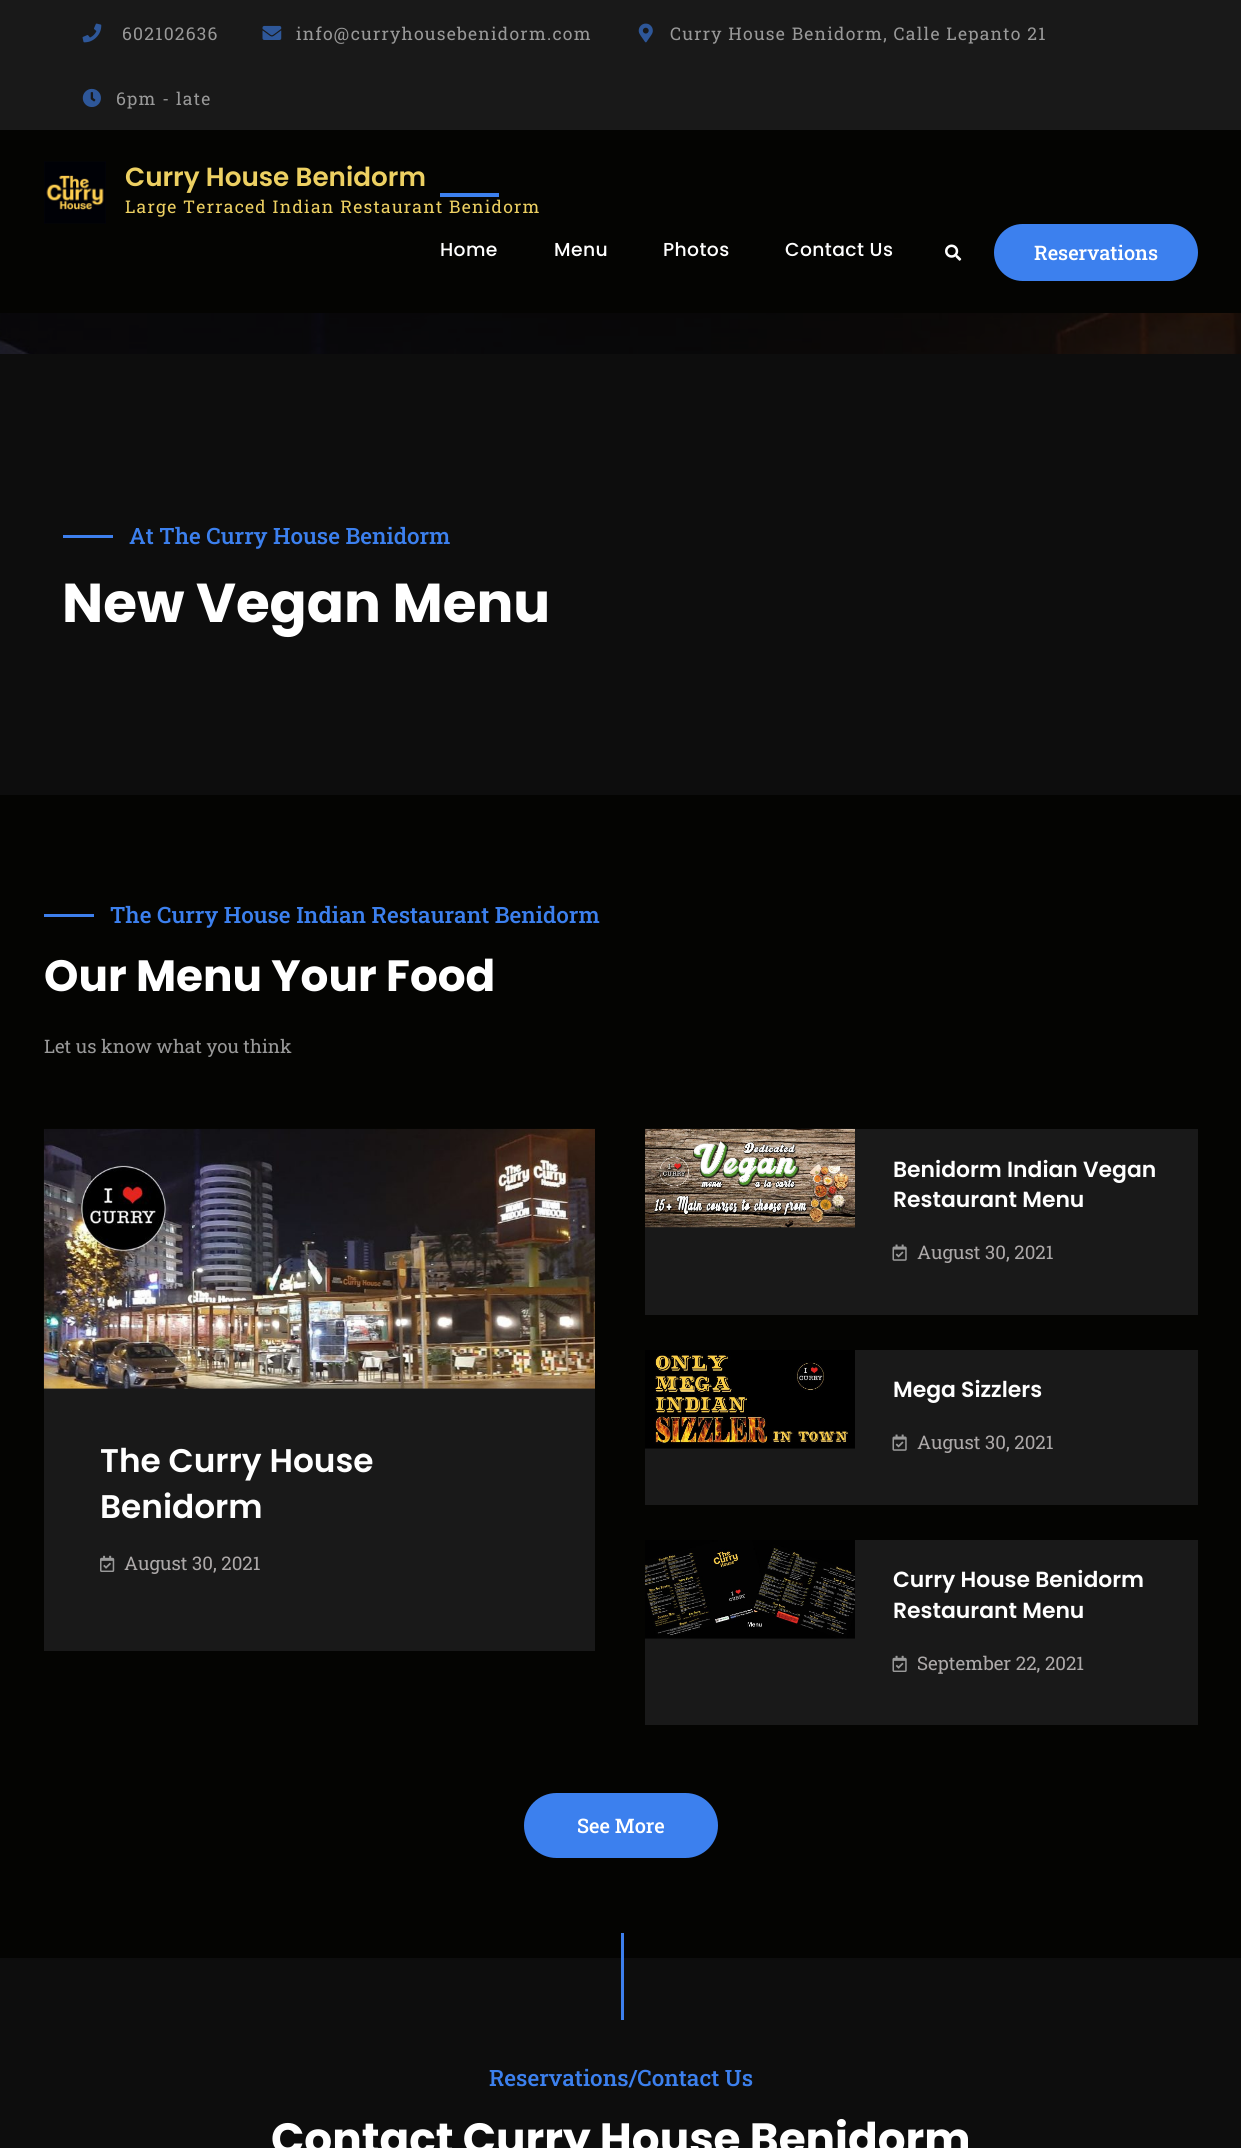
#include <cairo/cairo.h>
#include <math.h>
#include <stddef.h>


static void draw_spaced(cairo_t *cr, double x, double y, const char *s, double letter, double word) {
  cairo_move_to(cr, x, y);
  while (*s) {
    char ch[5] = {0};
    int n = 0;
    do ch[n++] = *s++; while ((*s & 0xC0) == 0x80);
    cairo_show_text(cr, ch);
    cairo_rel_move_to(cr, letter + word * (*ch == ' '), 0);
  }
}

static void rounded_rect(cairo_t *cr, double x, double y, double w, double h, double r) {
  cairo_new_sub_path(cr);
  cairo_arc(cr, x + w - r, y + h - r, r, 0, M_PI / 2);
  cairo_arc(cr, x + r, y + h - r, r, M_PI / 2, M_PI);
  cairo_arc(cr, x + r, y + r, r, M_PI, 1.5 * M_PI);
  cairo_arc(cr, x + w - r, y + r, r, 1.5 * M_PI, 2 * M_PI);
  cairo_close_path(cr);
}

static void draw_image(cairo_t *cr, const char *path, double x, double y, double w, double h) {
  cairo_surface_t *image = cairo_image_surface_create_from_png(path);
  cairo_save(cr);
  cairo_set_source_surface(cr, image, x, y);
  cairo_rectangle(cr, x, y, w, h);
  cairo_fill(cr);
  cairo_restore(cr);
  cairo_surface_destroy(image);
}

static void draw(cairo_t *cr) {
  cairo_set_source_rgb(cr, 4 / 255.0, 4 / 255.0, 2 / 255.0);
  cairo_paint(cr);
  cairo_set_source_rgb(cr, 25 / 255.0, 25 / 255.0, 25 / 255.0);
  cairo_rectangle(cr, 0, 0, 1241, 130);
  cairo_fill(cr);
  draw_image(cr, "images/1.png", 82, 23, 20, 20);
  draw_image(cr, "images/2.png", 262, 25, 20, 15);
  draw_image(cr, "images/3.png", 638, 23, 15, 20);
  draw_image(cr, "images/4.png", 82, 88, 19, 19);
  draw_image(cr, "images/5.png", 44, 161, 62, 63);
  cairo_set_source_rgb(cr, 60 / 255.0, 128 / 255.0, 238 / 255.0);
  cairo_rectangle(cr, 440, 193, 59, 4);
  cairo_fill(cr);
  draw_image(cr, "images/6.png", 945, 244, 17, 17);
  rounded_rect(cr, 994, 224, 204, 57, 28.5);
  cairo_fill(cr);
  draw_image(cr, "images/7.png", 0, 313, 1241, 41);
  cairo_set_source_rgb(cr, 13 / 255.0, 13 / 255.0, 13 / 255.0);
  cairo_rectangle(cr, 0, 354, 1241, 441);
  cairo_fill(cr);
  cairo_set_source_rgb(cr, 61 / 255.0, 127 / 255.0, 237 / 255.0);
  cairo_rectangle(cr, 63, 535, 50, 3);
  cairo_fill(cr);
  cairo_rectangle(cr, 44, 914, 50, 3);
  cairo_fill(cr);
  cairo_set_source_rgb(cr, 25 / 255.0, 25 / 255.0, 25 / 255.0);
  cairo_rectangle(cr, 645, 1129, 553, 186);
  cairo_fill(cr);
  draw_image(cr, "images/8.png", 645, 1128, 210, 100);
  draw_image(cr, "images/9.png", 892, 1244, 15, 17);
  cairo_rectangle(cr, 645, 1350, 553, 155);
  cairo_fill(cr);
  draw_image(cr, "images/10.png", 645, 1350, 210, 99);
  draw_image(cr, "images/9.png", 892, 1434, 15, 17);
  cairo_rectangle(cr, 44, 1388, 551, 263);
  cairo_fill(cr);
  draw_image(cr, "images/11.png", 43, 1128, 552, 261);
  draw_image(cr, "images/12.png", 100, 1555, 15, 17);
  cairo_rectangle(cr, 645, 1540, 553, 185);
  cairo_fill(cr);
  draw_image(cr, "images/13.png", 645, 1540, 210, 99);
  draw_image(cr, "images/14.png", 892, 1655, 15, 17);
  cairo_set_source_rgb(cr, 60 / 255.0, 128 / 255.0, 238 / 255.0);
  rounded_rect(cr, 524, 1793, 194, 65, 32.5);
  cairo_fill(cr);
  cairo_set_source_rgb(cr, 13 / 255.0, 13 / 255.0, 13 / 255.0);
  cairo_rectangle(cr, 0, 1958, 1241, 190);
  cairo_fill(cr);
  cairo_set_source_rgb(cr, 61 / 255.0, 127 / 255.0, 237 / 255.0);
  cairo_rectangle(cr, 621, 1933, 3, 87);
  cairo_fill(cr);
  cairo_select_font_face(cr, "Roboto Slab", CAIRO_FONT_SLANT_NORMAL, CAIRO_FONT_WEIGHT_NORMAL);
  cairo_set_font_size(cr, 17.5);
  cairo_set_source_rgb(cr, 153 / 255.0, 153 / 255.0, 153 / 255.0);
  draw_spaced(cr, 122, 40, "602102636", 1.25, 0);
  draw_spaced(cr, 296, 40, "info@curryhousebenidorm.com", 1.25, 0);
  draw_spaced(cr, 670, 40, "Curry House Benidorm, Calle Lepanto 21", 1.25, 0);
  draw_spaced(cr, 116, 105, "6pm - late", 1.25, 0);
  cairo_select_font_face(cr, "Poppins SemiBold", CAIRO_FONT_SLANT_NORMAL, CAIRO_FONT_WEIGHT_NORMAL);
  cairo_set_font_size(cr, 26.25);
  cairo_set_source_rgb(cr, 237 / 255.0, 208 / 255.0, 98 / 255.0);
  cairo_move_to(cr, 125, 186);
  cairo_show_text(cr, "Curry House Benidorm");
  cairo_select_font_face(cr, "Roboto Slab", CAIRO_FONT_SLANT_NORMAL, CAIRO_FONT_WEIGHT_NORMAL);
  cairo_set_font_size(cr, 17.5);
  draw_spaced(cr, 125, 213, "Large Terraced Indian Restaurant Benidorm", 1.25, 0);
  cairo_select_font_face(cr, "Poppins Medium", CAIRO_FONT_SLANT_NORMAL, CAIRO_FONT_WEIGHT_NORMAL);
  cairo_set_font_size(cr, 18.75);
  cairo_set_source_rgb(cr, 1, 1, 1);
  draw_spaced(cr, 440, 256, "Home", 0.4, 0);
  draw_spaced(cr, 554, 256, "Menu", 0.4, 0);
  draw_spaced(cr, 663, 256, "Photos", 0.4, 0);
  draw_spaced(cr, 785, 256, "Contact Us", 0.4, 0);
  cairo_select_font_face(cr, "Roboto Slab Medium", CAIRO_FONT_SLANT_NORMAL, CAIRO_FONT_WEIGHT_NORMAL);
  cairo_set_font_size(cr, 20);
  cairo_move_to(cr, 1034, 260);
  cairo_show_text(cr, "Reservations");
  cairo_set_font_size(cr, 22.5);
  cairo_set_source_rgb(cr, 60 / 255.0, 128 / 255.0, 238 / 255.0);
  cairo_move_to(cr, 129, 544);
  cairo_show_text(cr, "At The Curry House Benidorm");
  cairo_select_font_face(cr, "Poppins", CAIRO_FONT_SLANT_NORMAL, CAIRO_FONT_WEIGHT_BOLD);
  cairo_set_font_size(cr, 54.75);
  cairo_set_source_rgb(cr, 1, 1, 1);
  cairo_move_to(cr, 62, 622);
  cairo_show_text(cr, "New Vegan Menu");
  cairo_select_font_face(cr, "Roboto Slab Medium", CAIRO_FONT_SLANT_NORMAL, CAIRO_FONT_WEIGHT_NORMAL);
  cairo_set_font_size(cr, 22.5);
  cairo_set_source_rgb(cr, 60 / 255.0, 128 / 255.0, 238 / 255.0);
  cairo_move_to(cr, 110, 923);
  cairo_show_text(cr, "The Curry House Indian Restaurant Benidorm");
  cairo_select_font_face(cr, "Poppins", CAIRO_FONT_SLANT_NORMAL, CAIRO_FONT_WEIGHT_BOLD);
  cairo_set_font_size(cr, 43.75);
  cairo_set_source_rgb(cr, 1, 1, 1);
  cairo_move_to(cr, 44, 991);
  cairo_show_text(cr, "Our Menu Your Food");
  cairo_select_font_face(cr, "Roboto Slab", CAIRO_FONT_SLANT_NORMAL, CAIRO_FONT_WEIGHT_NORMAL);
  cairo_set_font_size(cr, 18.6);
  cairo_set_source_rgb(cr, 153 / 255.0, 153 / 255.0, 153 / 255.0);
  cairo_move_to(cr, 44, 1053);
  cairo_show_text(cr, "Let us know what you think");
  cairo_select_font_face(cr, "Poppins SemiBold", CAIRO_FONT_SLANT_NORMAL, CAIRO_FONT_WEIGHT_NORMAL);
  cairo_set_font_size(cr, 21.9);
  cairo_set_source_rgb(cr, 1, 1, 1);
  cairo_move_to(cr, 893, 1177);
  cairo_show_text(cr, "Benidorm Indian Vegan");
  cairo_move_to(cr, 893, 1207);
  cairo_show_text(cr, "Restaurant Menu");
  cairo_select_font_face(cr, "Roboto Slab", CAIRO_FONT_SLANT_NORMAL, CAIRO_FONT_WEIGHT_NORMAL);
  cairo_set_font_size(cr, 18.75);
  cairo_set_source_rgb(cr, 173 / 255.0, 169 / 255.0, 169 / 255.0);
  cairo_move_to(cr, 917, 1259);
  cairo_show_text(cr, "August 30, 2021");
  cairo_select_font_face(cr, "Poppins SemiBold", CAIRO_FONT_SLANT_NORMAL, CAIRO_FONT_WEIGHT_NORMAL);
  cairo_set_font_size(cr, 21.9);
  cairo_set_source_rgb(cr, 1, 1, 1);
  cairo_move_to(cr, 893, 1397);
  cairo_show_text(cr, "Mega Sizzlers");
  cairo_select_font_face(cr, "Roboto Slab", CAIRO_FONT_SLANT_NORMAL, CAIRO_FONT_WEIGHT_NORMAL);
  cairo_set_font_size(cr, 18.75);
  cairo_set_source_rgb(cr, 173 / 255.0, 169 / 255.0, 169 / 255.0);
  cairo_move_to(cr, 917, 1449);
  cairo_show_text(cr, "August 30, 2021");
  cairo_select_font_face(cr, "Poppins SemiBold", CAIRO_FONT_SLANT_NORMAL, CAIRO_FONT_WEIGHT_NORMAL);
  cairo_set_font_size(cr, 32.75);
  cairo_set_source_rgb(cr, 1, 1, 1);
  cairo_move_to(cr, 100, 1472);
  cairo_show_text(cr, "The Curry House");
  cairo_move_to(cr, 100, 1518);
  cairo_show_text(cr, "Benidorm");
  cairo_select_font_face(cr, "Roboto Slab", CAIRO_FONT_SLANT_NORMAL, CAIRO_FONT_WEIGHT_NORMAL);
  cairo_set_font_size(cr, 18.75);
  cairo_set_source_rgb(cr, 173 / 255.0, 169 / 255.0, 169 / 255.0);
  cairo_move_to(cr, 124, 1570);
  cairo_show_text(cr, "August 30, 2021");
  cairo_select_font_face(cr, "Poppins SemiBold", CAIRO_FONT_SLANT_NORMAL, CAIRO_FONT_WEIGHT_NORMAL);
  cairo_set_font_size(cr, 21.9);
  cairo_set_source_rgb(cr, 1, 1, 1);
  cairo_move_to(cr, 893, 1587);
  cairo_show_text(cr, "Curry House Benidorm");
  cairo_move_to(cr, 893, 1618);
  cairo_show_text(cr, "Restaurant Menu");
  cairo_select_font_face(cr, "Roboto Slab", CAIRO_FONT_SLANT_NORMAL, CAIRO_FONT_WEIGHT_NORMAL);
  cairo_set_font_size(cr, 18.75);
  cairo_set_source_rgb(cr, 173 / 255.0, 169 / 255.0, 169 / 255.0);
  cairo_move_to(cr, 917, 1670);
  cairo_show_text(cr, "September 22, 2021");
  cairo_select_font_face(cr, "Roboto Slab Medium", CAIRO_FONT_SLANT_NORMAL, CAIRO_FONT_WEIGHT_NORMAL);
  cairo_set_font_size(cr, 20);
  cairo_set_source_rgb(cr, 1, 1, 1);
  cairo_move_to(cr, 577, 1833);
  cairo_show_text(cr, "See More");
  cairo_set_font_size(cr, 22.5);
  cairo_set_source_rgb(cr, 60 / 255.0, 128 / 255.0, 238 / 255.0);
  cairo_move_to(cr, 489, 2086);
  cairo_show_text(cr, "Reservations/Contact Us");
  cairo_select_font_face(cr, "Poppins", CAIRO_FONT_SLANT_NORMAL, CAIRO_FONT_WEIGHT_BOLD);
  cairo_set_font_size(cr, 43.75);
  cairo_set_source_rgb(cr, 1, 1, 1);
  cairo_move_to(cr, 271, 2154);
  cairo_show_text(cr, "Contact Curry House Benidorm");
}

int main(void) {
  cairo_surface_t *surface = cairo_image_surface_create(CAIRO_FORMAT_RGB24, 1241, 2148);
  cairo_t *cr = cairo_create(surface);
  cairo_font_options_t *options = cairo_font_options_create();
  cairo_font_options_set_hint_metrics(options, CAIRO_HINT_METRICS_OFF);
  cairo_font_options_set_hint_style(options, CAIRO_HINT_STYLE_NONE);
  cairo_set_font_options(cr, options);
  cairo_set_miter_limit(cr, 4);
  draw(cr);
  cairo_surface_write_to_png(surface, "out.png");
  cairo_font_options_destroy(options);
  cairo_destroy(cr);
  cairo_surface_destroy(surface);
  return 0;
}
